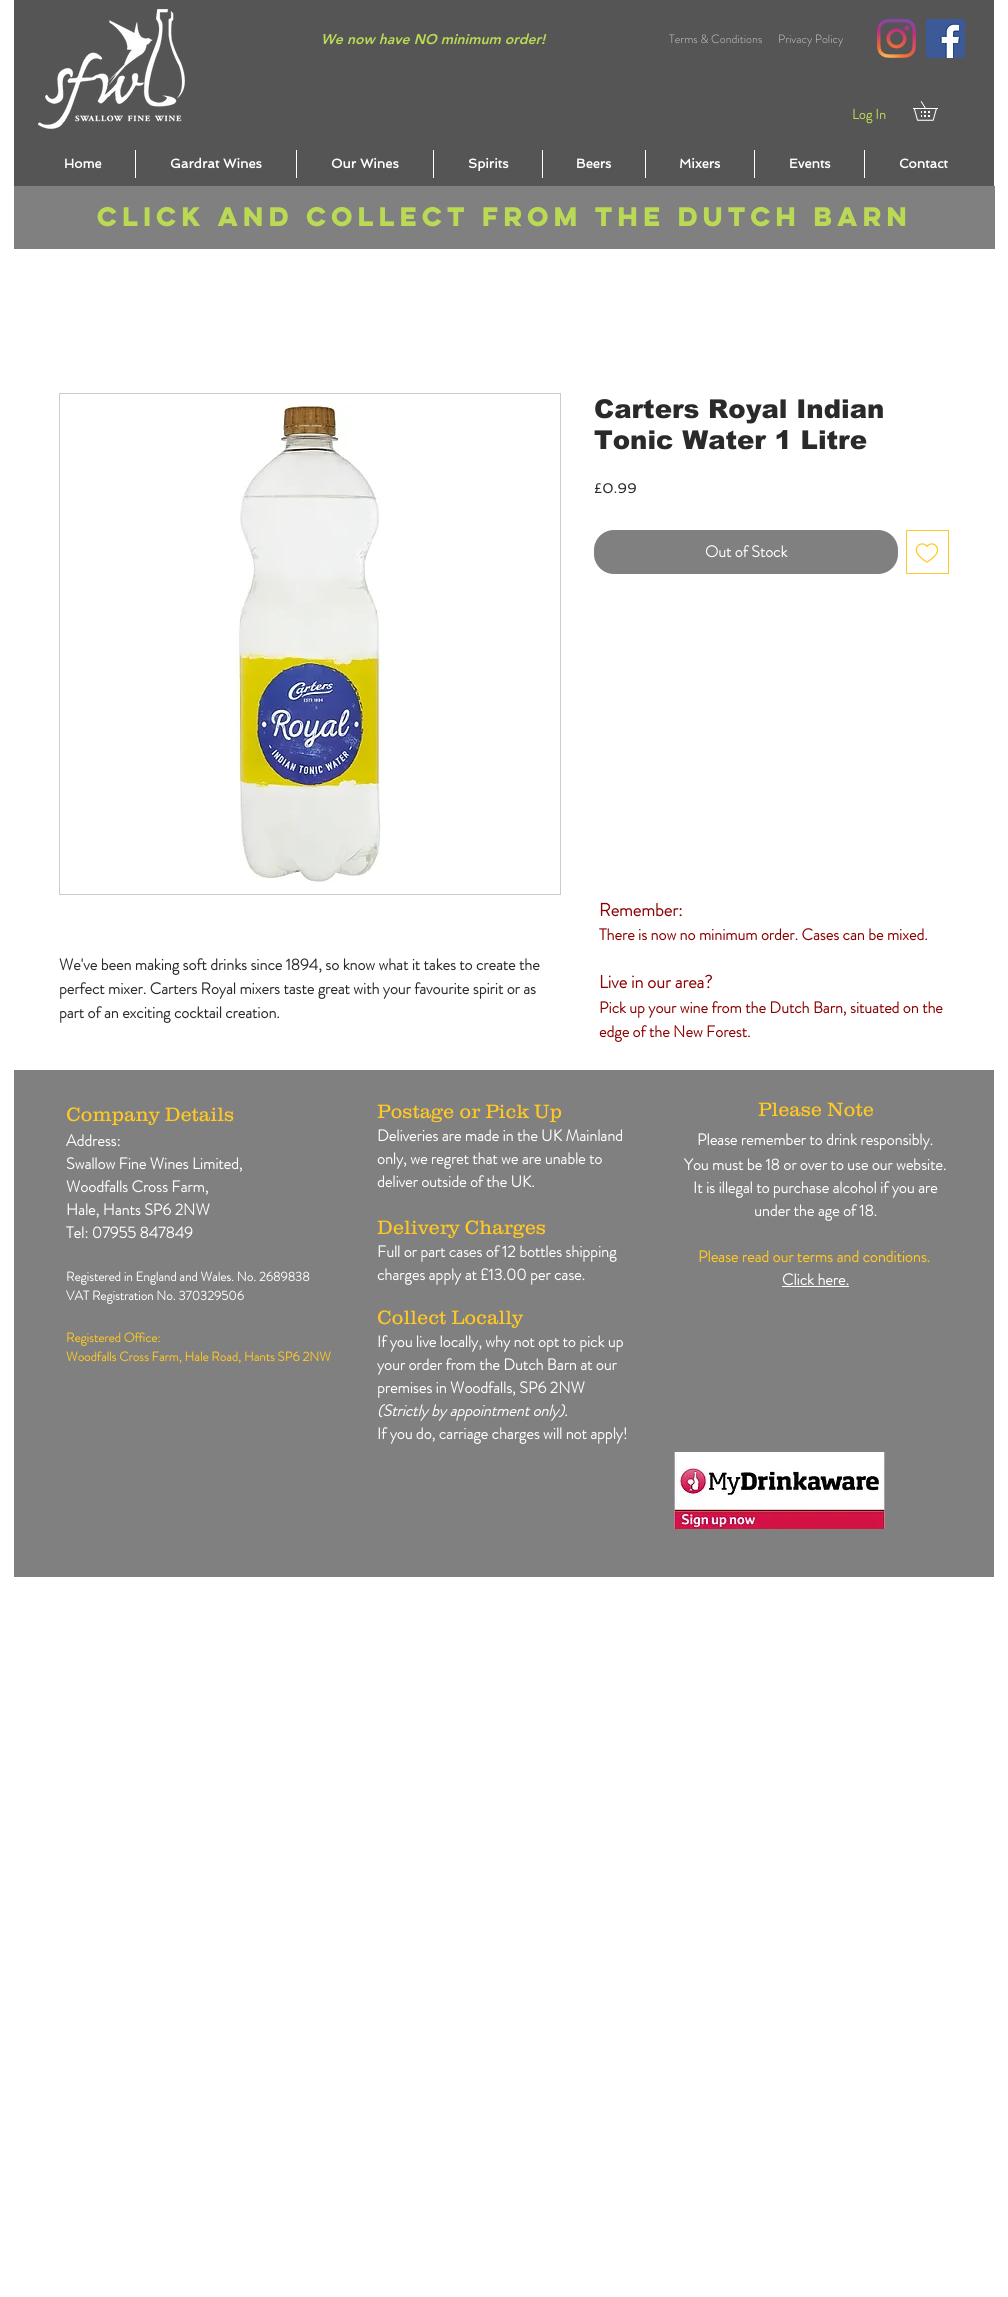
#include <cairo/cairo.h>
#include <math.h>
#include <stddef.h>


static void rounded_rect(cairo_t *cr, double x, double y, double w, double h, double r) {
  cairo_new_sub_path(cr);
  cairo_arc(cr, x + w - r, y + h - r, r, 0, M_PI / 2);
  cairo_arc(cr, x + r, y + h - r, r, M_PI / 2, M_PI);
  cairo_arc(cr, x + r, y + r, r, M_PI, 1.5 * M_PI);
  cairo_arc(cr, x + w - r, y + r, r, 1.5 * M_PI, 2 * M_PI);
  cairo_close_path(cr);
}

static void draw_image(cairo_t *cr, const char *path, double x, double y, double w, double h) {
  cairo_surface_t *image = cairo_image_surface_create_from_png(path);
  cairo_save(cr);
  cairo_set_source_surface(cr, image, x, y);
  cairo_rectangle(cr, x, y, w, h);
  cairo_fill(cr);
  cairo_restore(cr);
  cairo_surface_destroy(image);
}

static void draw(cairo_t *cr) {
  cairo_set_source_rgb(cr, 1, 1, 1);
  cairo_paint(cr);
  cairo_set_source_rgb(cr, 85 / 255.0, 85 / 255.0, 85 / 255.0);
  cairo_rectangle(cr, 14, 0, 980, 186);
  cairo_fill(cr);
  draw_image(cr, "images/1.png", 38, 9, 147, 120);
  draw_image(cr, "images/2.png", 877, 19, 39, 39);
  draw_image(cr, "images/3.png", 926, 19, 39, 39);
  draw_image(cr, "images/4.png", 913, 101, 25, 20);
  cairo_set_source_rgb(cr, 1, 1, 1);
  cairo_rectangle(cr, 135, 150, 1, 28);
  cairo_fill(cr);
  cairo_rectangle(cr, 296, 150, 1, 28);
  cairo_fill(cr);
  cairo_rectangle(cr, 433, 150, 1, 28);
  cairo_fill(cr);
  cairo_rectangle(cr, 542, 150, 1, 28);
  cairo_fill(cr);
  cairo_rectangle(cr, 645, 150, 1, 28);
  cairo_fill(cr);
  cairo_rectangle(cr, 754, 150, 1, 28);
  cairo_fill(cr);
  cairo_rectangle(cr, 864, 150, 1, 28);
  cairo_fill(cr);
  cairo_set_source_rgb(cr, 128 / 255.0, 128 / 255.0, 128 / 255.0);
  cairo_rectangle(cr, 14, 186, 981, 63);
  cairo_fill(cr);
  rounded_rect(cr, 594, 530, 304, 44, 20);
  cairo_fill(cr);
  cairo_rectangle(cr, 906.5, 530.5, 42, 43);
  cairo_set_source_rgb(cr, 1, 200 / 255.0, 36 / 255.0);
  cairo_set_line_width(cr, 1);
  cairo_stroke(cr);
  draw_image(cr, "images/5.png", 915, 543, 24, 20);
  cairo_rectangle(cr, 59.5, 393.5, 501, 501);
  cairo_set_source_rgb(cr, 204 / 255.0, 204 / 255.0, 204 / 255.0);
  cairo_stroke(cr);
  draw_image(cr, "images/6.png", 236, 405, 145, 478);
  cairo_set_source_rgb(cr, 128 / 255.0, 128 / 255.0, 128 / 255.0);
  cairo_rectangle(cr, 14, 1070, 980, 507);
  cairo_fill(cr);
  cairo_set_source_rgb(cr, 1, 1, 1);
  cairo_rectangle(cr, 782, 1286, 67, 1);
  cairo_fill(cr);
  draw_image(cr, "images/7.png", 674, 1452, 211, 77);
  cairo_select_font_face(cr, "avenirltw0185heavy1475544 Black", CAIRO_FONT_SLANT_ITALIC, CAIRO_FONT_WEIGHT_NORMAL);
  cairo_set_font_size(cr, 14);
  cairo_set_source_rgb(cr, 186 / 255.0, 218 / 255.0, 85 / 255.0);
  cairo_move_to(cr, 321, 44);
  cairo_show_text(cr, "We now have NO minimum order!");
  cairo_select_font_face(cr, "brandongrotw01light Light", CAIRO_FONT_SLANT_NORMAL, CAIRO_FONT_WEIGHT_NORMAL);
  cairo_set_font_size(cr, 12);
  cairo_set_source_rgb(cr, 204 / 255.0, 204 / 255.0, 204 / 255.0);
  cairo_move_to(cr, 669, 43);
  cairo_show_text(cr, "Terms & Conditions");
  cairo_move_to(cr, 778, 43);
  cairo_show_text(cr, "Privacy Policy");
  cairo_select_font_face(cr, "brandongrotw01light", CAIRO_FONT_SLANT_NORMAL, CAIRO_FONT_WEIGHT_BOLD);
  cairo_set_font_size(cr, 14);
  cairo_set_source_rgb(cr, 186 / 255.0, 218 / 255.0, 85 / 255.0);
  cairo_move_to(cr, 852, 119);
  cairo_show_text(cr, "Log In");
  cairo_select_font_face(cr, "Spinnaker", CAIRO_FONT_SLANT_NORMAL, CAIRO_FONT_WEIGHT_BOLD);
  cairo_set_font_size(cr, 13);
  cairo_set_source_rgb(cr, 1, 1, 1);
  cairo_move_to(cr, 64, 168);
  cairo_show_text(cr, "Home");
  cairo_move_to(cr, 170, 168);
  cairo_show_text(cr, "Gardrat Wines");
  cairo_move_to(cr, 331, 168);
  cairo_show_text(cr, "Our Wines");
  cairo_move_to(cr, 468, 168);
  cairo_show_text(cr, "Spirits");
  cairo_move_to(cr, 576, 168);
  cairo_show_text(cr, "Beers");
  cairo_move_to(cr, 679, 168);
  cairo_show_text(cr, "Mixers");
  cairo_move_to(cr, 789, 168);
  cairo_show_text(cr, "Events");
  cairo_move_to(cr, 899, 168);
  cairo_show_text(cr, "Contact");
  cairo_select_font_face(cr, "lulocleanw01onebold", CAIRO_FONT_SLANT_NORMAL, CAIRO_FONT_WEIGHT_BOLD);
  cairo_set_font_size(cr, 24);
  cairo_set_source_rgb(cr, 186 / 255.0, 218 / 255.0, 85 / 255.0);
  cairo_move_to(cr, 97, 226);
  cairo_show_text(cr, "CLICK AND COLLECT FROM THE DUTCH BARN");
  cairo_select_font_face(cr, "arial Black", CAIRO_FONT_SLANT_NORMAL, CAIRO_FONT_WEIGHT_NORMAL);
  cairo_set_font_size(cr, 26);
  cairo_set_source_rgb(cr, 42 / 255.0, 42 / 255.0, 42 / 255.0);
  cairo_move_to(cr, 594, 418);
  cairo_show_text(cr, "Carters Royal Indian");
  cairo_move_to(cr, 594, 449);
  cairo_show_text(cr, "Tonic Water 1 Litre");
  cairo_select_font_face(cr, "Spinnaker", CAIRO_FONT_SLANT_NORMAL, CAIRO_FONT_WEIGHT_NORMAL);
  cairo_set_font_size(cr, 14);
  cairo_move_to(cr, 594, 493);
  cairo_show_text(cr, "£0.99");
  cairo_select_font_face(cr, "brandongrotw01light", CAIRO_FONT_SLANT_NORMAL, CAIRO_FONT_WEIGHT_BOLD);
  cairo_set_font_size(cr, 16);
  cairo_set_source_rgb(cr, 1, 1, 1);
  cairo_move_to(cr, 705, 557);
  cairo_show_text(cr, "Out of Stock");
  cairo_set_source_rgb(cr, 42 / 255.0, 42 / 255.0, 42 / 255.0);
  cairo_move_to(cr, 59, 970);
  cairo_show_text(cr, "We've been making soft drinks since 1894, so know what it takes to create the");
  cairo_move_to(cr, 59, 994);
  cairo_show_text(cr, "perfect mixer. Carters Royal mixers taste great with your favourite spirit or as");
  cairo_move_to(cr, 59, 1018);
  cairo_show_text(cr, "part of an exciting cocktail creation.");
  cairo_set_font_size(cr, 18);
  cairo_set_source_rgb(cr, 139 / 255.0, 0, 0);
  cairo_move_to(cr, 599, 916);
  cairo_show_text(cr, "Remember:");
  cairo_set_font_size(cr, 16);
  cairo_move_to(cr, 599, 940);
  cairo_show_text(cr, "There is now no minimum order. Cases can be mixed.");
  cairo_set_font_size(cr, 18);
  cairo_move_to(cr, 599, 988);
  cairo_show_text(cr, "Live in our area?");
  cairo_set_font_size(cr, 16);
  cairo_move_to(cr, 599, 1013);
  cairo_show_text(cr, "Pick up your wine from the Dutch Barn, situated on the");
  cairo_move_to(cr, 599, 1037);
  cairo_show_text(cr, "edge of the New Forest.");
  cairo_select_font_face(cr, "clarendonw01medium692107 Light", CAIRO_FONT_SLANT_NORMAL, CAIRO_FONT_WEIGHT_NORMAL);
  cairo_set_font_size(cr, 20);
  cairo_set_source_rgb(cr, 1, 200 / 255.0, 36 / 255.0);
  cairo_move_to(cr, 66, 1121);
  cairo_show_text(cr, "Company Details");
  cairo_select_font_face(cr, "brandongrotw01light", CAIRO_FONT_SLANT_NORMAL, CAIRO_FONT_WEIGHT_BOLD);
  cairo_set_font_size(cr, 16);
  cairo_set_source_rgb(cr, 1, 1, 1);
  cairo_move_to(cr, 66, 1146);
  cairo_show_text(cr, "Address:");
  cairo_move_to(cr, 66, 1169);
  cairo_show_text(cr, "Swallow Fine Wines Limited,");
  cairo_move_to(cr, 66, 1192);
  cairo_show_text(cr, "Woodfalls Cross Farm,");
  cairo_move_to(cr, 66, 1215);
  cairo_show_text(cr, "Hale, Hants SP6 2NW");
  cairo_move_to(cr, 66, 1238);
  cairo_show_text(cr, "Tel: 07955 847849");
  cairo_set_font_size(cr, 13);
  cairo_move_to(cr, 66, 1281);
  cairo_show_text(cr, "Registered in England and Wales. No. 2689838");
  cairo_move_to(cr, 66, 1300);
  cairo_show_text(cr, "VAT Registration No. 370329506");
  cairo_set_source_rgb(cr, 1, 200 / 255.0, 36 / 255.0);
  cairo_move_to(cr, 66, 1342);
  cairo_show_text(cr, "Registered Office:");
  cairo_move_to(cr, 66, 1361);
  cairo_show_text(cr, "Woodfalls Cross Farm, Hale Road, Hants SP6 2NW");
  cairo_select_font_face(cr, "clarendonw01medium692107 Light", CAIRO_FONT_SLANT_NORMAL, CAIRO_FONT_WEIGHT_NORMAL);
  cairo_set_font_size(cr, 20);
  cairo_move_to(cr, 377, 1118);
  cairo_show_text(cr, "Postage or Pick Up");
  cairo_select_font_face(cr, "brandongrotw01light", CAIRO_FONT_SLANT_NORMAL, CAIRO_FONT_WEIGHT_BOLD);
  cairo_set_font_size(cr, 16);
  cairo_set_source_rgb(cr, 1, 1, 1);
  cairo_move_to(cr, 377, 1141);
  cairo_show_text(cr, "Deliveries are made in the UK Mainland");
  cairo_move_to(cr, 377, 1164);
  cairo_show_text(cr, "only, we regret that we are unable to");
  cairo_move_to(cr, 377, 1187);
  cairo_show_text(cr, "deliver outside of the UK.");
  cairo_select_font_face(cr, "clarendonw01medium692107 Light", CAIRO_FONT_SLANT_NORMAL, CAIRO_FONT_WEIGHT_NORMAL);
  cairo_set_font_size(cr, 20);
  cairo_set_source_rgb(cr, 1, 200 / 255.0, 36 / 255.0);
  cairo_move_to(cr, 377, 1234);
  cairo_show_text(cr, "Delivery Charges");
  cairo_select_font_face(cr, "brandongrotw01light", CAIRO_FONT_SLANT_NORMAL, CAIRO_FONT_WEIGHT_BOLD);
  cairo_set_font_size(cr, 16);
  cairo_set_source_rgb(cr, 1, 1, 1);
  cairo_move_to(cr, 377, 1257);
  cairo_show_text(cr, "Full or part cases of 12 bottles shipping");
  cairo_move_to(cr, 377, 1280);
  cairo_show_text(cr, "charges apply at £13.00 per case.");
  cairo_select_font_face(cr, "clarendonw01medium692107 Light", CAIRO_FONT_SLANT_NORMAL, CAIRO_FONT_WEIGHT_NORMAL);
  cairo_set_font_size(cr, 20);
  cairo_set_source_rgb(cr, 1, 200 / 255.0, 36 / 255.0);
  cairo_move_to(cr, 377, 1324);
  cairo_show_text(cr, "Collect Locally");
  cairo_select_font_face(cr, "brandongrotw01light", CAIRO_FONT_SLANT_NORMAL, CAIRO_FONT_WEIGHT_BOLD);
  cairo_set_font_size(cr, 16);
  cairo_set_source_rgb(cr, 1, 1, 1);
  cairo_move_to(cr, 377, 1347);
  cairo_show_text(cr, "If you live locally, why not opt to pick up");
  cairo_move_to(cr, 377, 1370);
  cairo_show_text(cr, "your order from the Dutch Barn at our");
  cairo_move_to(cr, 377, 1393);
  cairo_show_text(cr, "premises in Woodfalls, SP6 2NW");
  cairo_select_font_face(cr, "brandongrotw01light", CAIRO_FONT_SLANT_ITALIC, CAIRO_FONT_WEIGHT_BOLD);
  cairo_move_to(cr, 377, 1416);
  cairo_show_text(cr, "(Strictly by appointment only).");
  cairo_select_font_face(cr, "brandongrotw01light", CAIRO_FONT_SLANT_NORMAL, CAIRO_FONT_WEIGHT_BOLD);
  cairo_move_to(cr, 377, 1439);
  cairo_show_text(cr, "If you do, carriage charges will not apply!");
  cairo_select_font_face(cr, "clarendonw01medium692107 Light", CAIRO_FONT_SLANT_NORMAL, CAIRO_FONT_WEIGHT_NORMAL);
  cairo_set_font_size(cr, 20);
  cairo_set_source_rgb(cr, 1, 200 / 255.0, 36 / 255.0);
  cairo_move_to(cr, 758, 1116);
  cairo_show_text(cr, "Please Note");
  cairo_select_font_face(cr, "brandongrotw01light", CAIRO_FONT_SLANT_NORMAL, CAIRO_FONT_WEIGHT_BOLD);
  cairo_set_font_size(cr, 16);
  cairo_set_source_rgb(cr, 1, 1, 1);
  cairo_move_to(cr, 697, 1145);
  cairo_show_text(cr, "Please remember to drink responsibly.");
  cairo_move_to(cr, 684, 1170);
  cairo_show_text(cr, "You must be 18 or over to use our website.");
  cairo_move_to(cr, 693, 1193);
  cairo_show_text(cr, "It is illegal to purchase alcohol if you are");
  cairo_move_to(cr, 754, 1216);
  cairo_show_text(cr, "under the age of 18.");
  cairo_set_source_rgb(cr, 1, 200 / 255.0, 36 / 255.0);
  cairo_move_to(cr, 698, 1262);
  cairo_show_text(cr, "Please read our terms and conditions.");
  cairo_set_source_rgb(cr, 1, 1, 1);
  cairo_move_to(cr, 782, 1285);
  cairo_show_text(cr, "Click here.");
}

int main(void) {
  cairo_surface_t *surface = cairo_image_surface_create(CAIRO_FORMAT_RGB24, 1008, 2297);
  cairo_t *cr = cairo_create(surface);
  cairo_font_options_t *options = cairo_font_options_create();
  cairo_font_options_set_hint_metrics(options, CAIRO_HINT_METRICS_OFF);
  cairo_font_options_set_hint_style(options, CAIRO_HINT_STYLE_NONE);
  cairo_set_font_options(cr, options);
  cairo_set_miter_limit(cr, 4);
  draw(cr);
  cairo_surface_write_to_png(surface, "out.png");
  cairo_font_options_destroy(options);
  cairo_destroy(cr);
  cairo_surface_destroy(surface);
  return 0;
}
